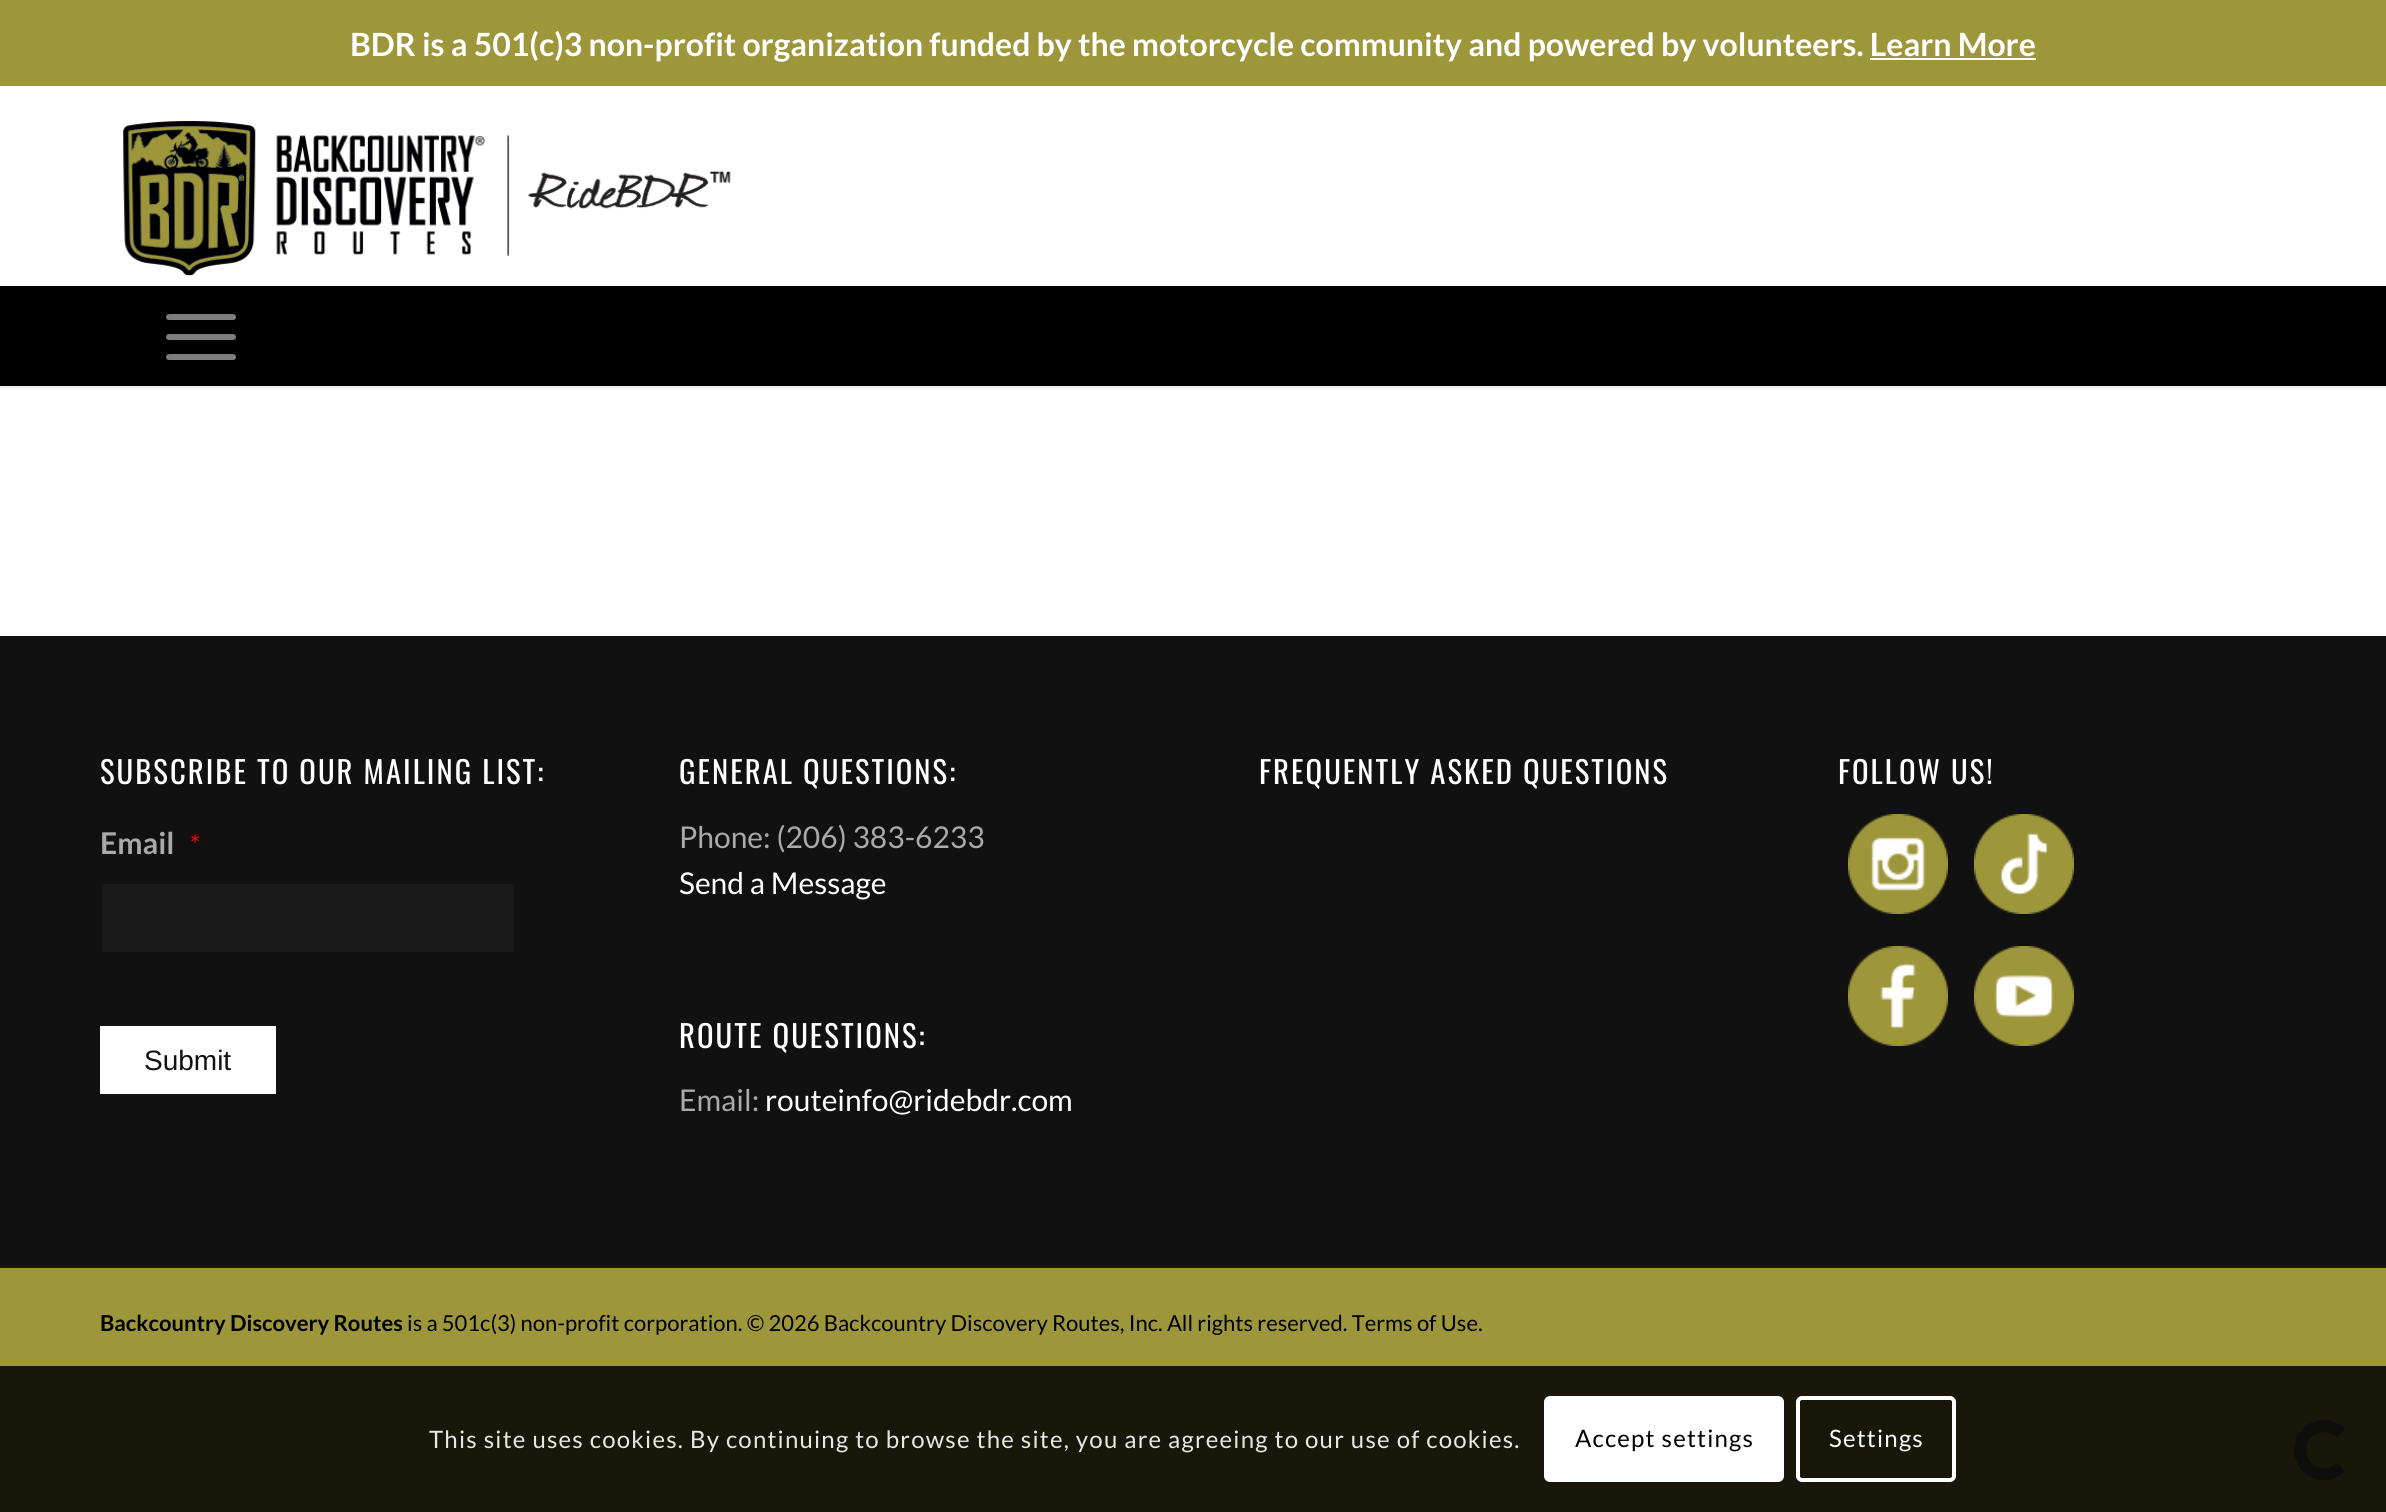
#include <cairo/cairo.h>
#include <math.h>
#include <stddef.h>


static void draw_spaced(cairo_t *cr, double x, double y, const char *s, double letter, double word) {
  cairo_move_to(cr, x, y);
  while (*s) {
    char ch[5] = {0};
    int n = 0;
    do ch[n++] = *s++; while ((*s & 0xC0) == 0x80);
    cairo_show_text(cr, ch);
    cairo_rel_move_to(cr, letter + word * (*ch == ' '), 0);
  }
}

static void rounded_rect(cairo_t *cr, double x, double y, double w, double h, double r) {
  cairo_new_sub_path(cr);
  cairo_arc(cr, x + w - r, y + h - r, r, 0, M_PI / 2);
  cairo_arc(cr, x + r, y + h - r, r, M_PI / 2, M_PI);
  cairo_arc(cr, x + r, y + r, r, M_PI, 1.5 * M_PI);
  cairo_arc(cr, x + w - r, y + r, r, 1.5 * M_PI, 2 * M_PI);
  cairo_close_path(cr);
}

static void draw_shadow(cairo_t *cr, double x, double y, double w, double h, double r, double blur, double alpha) {
  cairo_push_group_with_content(cr, CAIRO_CONTENT_ALPHA);
  cairo_set_operator(cr, CAIRO_OPERATOR_SOURCE);
  for (int i = 15; i >= -15 && fmin(w, h) + blur * i / 3 > 0; i -= 2) {
    double e = blur * i / 6;
    cairo_set_source_rgba(cr, 0, 0, 0, alpha * erfc((i - 1) / 8.5) / 2);
    rounded_rect(cr, x - e, y - e, w + 2 * e, h + 2 * e, fmax(0, fmin(r + e + blur * .6, fmin(w, h) / 2 + e)));
    cairo_fill(cr);
  }
  cairo_pattern_t *soft = cairo_pop_group(cr);
  cairo_mask(cr, soft);
  cairo_pattern_destroy(soft);
}

static void draw_image(cairo_t *cr, const char *path, double x, double y, double w, double h) {
  cairo_surface_t *image = cairo_image_surface_create_from_png(path);
  cairo_save(cr);
  cairo_set_source_surface(cr, image, x, y);
  cairo_rectangle(cr, x, y, w, h);
  cairo_fill(cr);
  cairo_restore(cr);
  cairo_surface_destroy(image);
}

static void draw(cairo_t *cr) {
  cairo_set_source_rgb(cr, 157 / 255.0, 150 / 255.0, 58 / 255.0);
  cairo_paint(cr);
  cairo_set_source_rgb(cr, 24 / 255.0, 23 / 255.0, 9 / 255.0);
  cairo_rectangle(cr, 0, 1366, 2386, 146);
  cairo_fill(cr);
  cairo_set_source_rgb(cr, 1, 1, 1);
  cairo_rectangle(cr, 1870, 58, 166, 2);
  cairo_fill(cr);
  cairo_rectangle(cr, 0, 86, 2386, 550);
  cairo_fill(cr);
  cairo_save(cr);
  cairo_rectangle(cr, 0, 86, 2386, 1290);
  cairo_clip(cr);
  cairo_rectangle(cr, 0, 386, 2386, 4);
  cairo_clip(cr);
  cairo_set_source_rgb(cr, 0, 0, 0);
  draw_shadow(cr, -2, 84, 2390, 304, 0, 2, 0.1);
  cairo_restore(cr);
  draw_image(cr, "images/1.png", 123, 121, 608, 155);
  cairo_set_source_rgb(cr, 0, 0, 0);
  cairo_rectangle(cr, 0, 286, 2386, 100);
  cairo_fill(cr);
  cairo_set_source_rgb(cr, 125 / 255.0, 125 / 255.0, 125 / 255.0);
  rounded_rect(cr, 166, 334, 70, 6, 3);
  cairo_fill(cr);
  rounded_rect(cr, 166, 314, 70, 6, 3);
  cairo_fill(cr);
  rounded_rect(cr, 166, 354, 70, 6, 3);
  cairo_fill(cr);
  cairo_set_source_rgb(cr, 17 / 255.0, 17 / 255.0, 17 / 255.0);
  cairo_rectangle(cr, 0, 636, 2386, 630);
  cairo_fill(cr);
  cairo_set_source_rgb(cr, 25 / 255.0, 25 / 255.0, 25 / 255.0);
  cairo_rectangle(cr, 102, 884, 412, 68);
  cairo_fill(cr);
  cairo_set_source_rgb(cr, 1, 1, 1);
  cairo_rectangle(cr, 100, 1026, 176, 68);
  cairo_fill(cr);
  draw_image(cr, "images/2.png", 1848, 814, 100, 100);
  draw_image(cr, "images/3.png", 1974, 814, 100, 100);
  draw_image(cr, "images/4.png", 1848, 946, 100, 100);
  draw_image(cr, "images/5.png", 1974, 946, 100, 100);
  cairo_set_source_rgb(cr, 25 / 255.0, 25 / 255.0, 25 / 255.0);
  cairo_rectangle(cr, 0, 1266, 2386, 2);
  cairo_fill(cr);
  cairo_set_source_rgb(cr, 1, 1, 1);
  rounded_rect(cr, 1544, 1396, 240, 86, 6);
  cairo_fill(cr);
  rounded_rect(cr, 1798, 1398, 156, 82, 4);
  cairo_set_line_width(cr, 4);
  cairo_stroke(cr);
  cairo_new_path(cr);
  cairo_move_to(cr, 2341, 1467);
  cairo_curve_to(cr, 2336.5, 1471.5, 2330.5, 1474, 2324, 1474);
  cairo_curve_to(cr, 2295.5, 1474, 2291, 1432, 2319.5, 1426.5);
  cairo_curve_to(cr, 2327, 1425, 2335.5, 1427.5, 2341, 1433);
  cairo_set_source_rgb(cr, 14 / 255.0, 14 / 255.0, 10 / 255.0);
  cairo_set_line_width(cr, 12);
  cairo_stroke(cr);
  cairo_select_font_face(cr, "Lato", CAIRO_FONT_SLANT_NORMAL, CAIRO_FONT_WEIGHT_BOLD);
  cairo_set_font_size(cr, 32);
  cairo_set_source_rgb(cr, 1, 1, 1);
  cairo_move_to(cr, 350, 56);
  cairo_show_text(cr, "BDR is a 501(c)3 non-profit organization funded by the motorcycle community and powered by volunteers. Learn More");
  cairo_select_font_face(cr, "Oswald", CAIRO_FONT_SLANT_NORMAL, CAIRO_FONT_WEIGHT_NORMAL);
  cairo_set_font_size(cr, 30.75);
  draw_spaced(cr, 100, 784, "SUBSCRIBE TO OUR MAILING LIST:", 2, 0);
  cairo_select_font_face(cr, "Lato", CAIRO_FONT_SLANT_NORMAL, CAIRO_FONT_WEIGHT_BOLD);
  cairo_set_font_size(cr, 30);
  cairo_set_source_rgb(cr, 170 / 255.0, 170 / 255.0, 170 / 255.0);
  cairo_move_to(cr, 100, 854);
  cairo_show_text(cr, "Email");
  cairo_select_font_face(cr, "Lato", CAIRO_FONT_SLANT_NORMAL, CAIRO_FONT_WEIGHT_NORMAL);
  cairo_set_font_size(cr, 26);
  cairo_set_source_rgb(cr, 1, 0, 0);
  cairo_move_to(cr, 190, 854);
  cairo_show_text(cr, "*");
  cairo_select_font_face(cr, "Liberation Sans", CAIRO_FONT_SLANT_NORMAL, CAIRO_FONT_WEIGHT_NORMAL);
  cairo_set_font_size(cr, 28);
  cairo_set_source_rgb(cr, 17 / 255.0, 17 / 255.0, 17 / 255.0);
  cairo_move_to(cr, 144, 1070);
  cairo_show_text(cr, "Submit");
  cairo_select_font_face(cr, "Oswald", CAIRO_FONT_SLANT_NORMAL, CAIRO_FONT_WEIGHT_NORMAL);
  cairo_set_font_size(cr, 30.75);
  cairo_set_source_rgb(cr, 1, 1, 1);
  draw_spaced(cr, 679, 784, "GENERAL QUESTIONS:", 2, 0);
  cairo_select_font_face(cr, "Lato", CAIRO_FONT_SLANT_NORMAL, CAIRO_FONT_WEIGHT_NORMAL);
  cairo_set_font_size(cr, 30);
  cairo_set_source_rgb(cr, 170 / 255.0, 170 / 255.0, 170 / 255.0);
  cairo_move_to(cr, 679, 848);
  cairo_show_text(cr, "Phone: (206) 383-6233");
  cairo_set_source_rgb(cr, 1, 1, 1);
  cairo_move_to(cr, 679, 894);
  cairo_show_text(cr, "Send a Message");
  cairo_select_font_face(cr, "Oswald", CAIRO_FONT_SLANT_NORMAL, CAIRO_FONT_WEIGHT_NORMAL);
  cairo_set_font_size(cr, 30.75);
  draw_spaced(cr, 679, 1048, "ROUTE QUESTIONS:", 2, 0);
  cairo_select_font_face(cr, "Lato", CAIRO_FONT_SLANT_NORMAL, CAIRO_FONT_WEIGHT_NORMAL);
  cairo_set_font_size(cr, 30);
  cairo_set_source_rgb(cr, 170 / 255.0, 170 / 255.0, 170 / 255.0);
  cairo_move_to(cr, 679, 1111);
  cairo_show_text(cr, "Email:");
  cairo_set_source_rgb(cr, 1, 1, 1);
  cairo_move_to(cr, 765, 1111);
  cairo_show_text(cr, "routeinfo@ridebdr.com");
  cairo_select_font_face(cr, "Oswald", CAIRO_FONT_SLANT_NORMAL, CAIRO_FONT_WEIGHT_NORMAL);
  cairo_set_font_size(cr, 30.75);
  draw_spaced(cr, 1259, 784, "FREQUENTLY ASKED QUESTIONS", 2, 0);
  draw_spaced(cr, 1838, 784, "FOLLOW US!", 2, 0);
  cairo_select_font_face(cr, "Lato", CAIRO_FONT_SLANT_NORMAL, CAIRO_FONT_WEIGHT_BOLD);
  cairo_set_font_size(cr, 22);
  cairo_set_source_rgb(cr, 0, 0, 0);
  cairo_move_to(cr, 100, 1331);
  cairo_show_text(cr, "Backcountry Discovery Routes");
  cairo_select_font_face(cr, "Lato", CAIRO_FONT_SLANT_NORMAL, CAIRO_FONT_WEIGHT_NORMAL);
  cairo_move_to(cr, 407, 1331);
  cairo_show_text(cr, "is a 501c(3) non-profit corporation. © 2026 Backcountry Discovery Routes, Inc. All rights reserved. Terms of Use.");
  cairo_set_font_size(cr, 24);
  cairo_set_source_rgb(cr, 232 / 255.0, 232 / 255.0, 230 / 255.0);
  draw_spaced(cr, 429, 1448, "This site uses cookies. By continuing to browse the site, you are agreeing to our use of cookies.", 1.2, 0);
  cairo_set_source_rgb(cr, 0, 0, 0);
  draw_spaced(cr, 1575, 1447, "Accept settings", 1.2, 0);
  cairo_set_source_rgb(cr, 1, 1, 1);
  draw_spaced(cr, 1829, 1447, "Settings", 1.2, 0);
}

int main(void) {
  cairo_surface_t *surface = cairo_image_surface_create(CAIRO_FORMAT_RGB24, 2386, 1512);
  cairo_t *cr = cairo_create(surface);
  cairo_font_options_t *options = cairo_font_options_create();
  cairo_font_options_set_hint_metrics(options, CAIRO_HINT_METRICS_OFF);
  cairo_font_options_set_hint_style(options, CAIRO_HINT_STYLE_NONE);
  cairo_set_font_options(cr, options);
  cairo_set_miter_limit(cr, 4);
  draw(cr);
  cairo_surface_write_to_png(surface, "out.png");
  cairo_font_options_destroy(options);
  cairo_destroy(cr);
  cairo_surface_destroy(surface);
  return 0;
}
